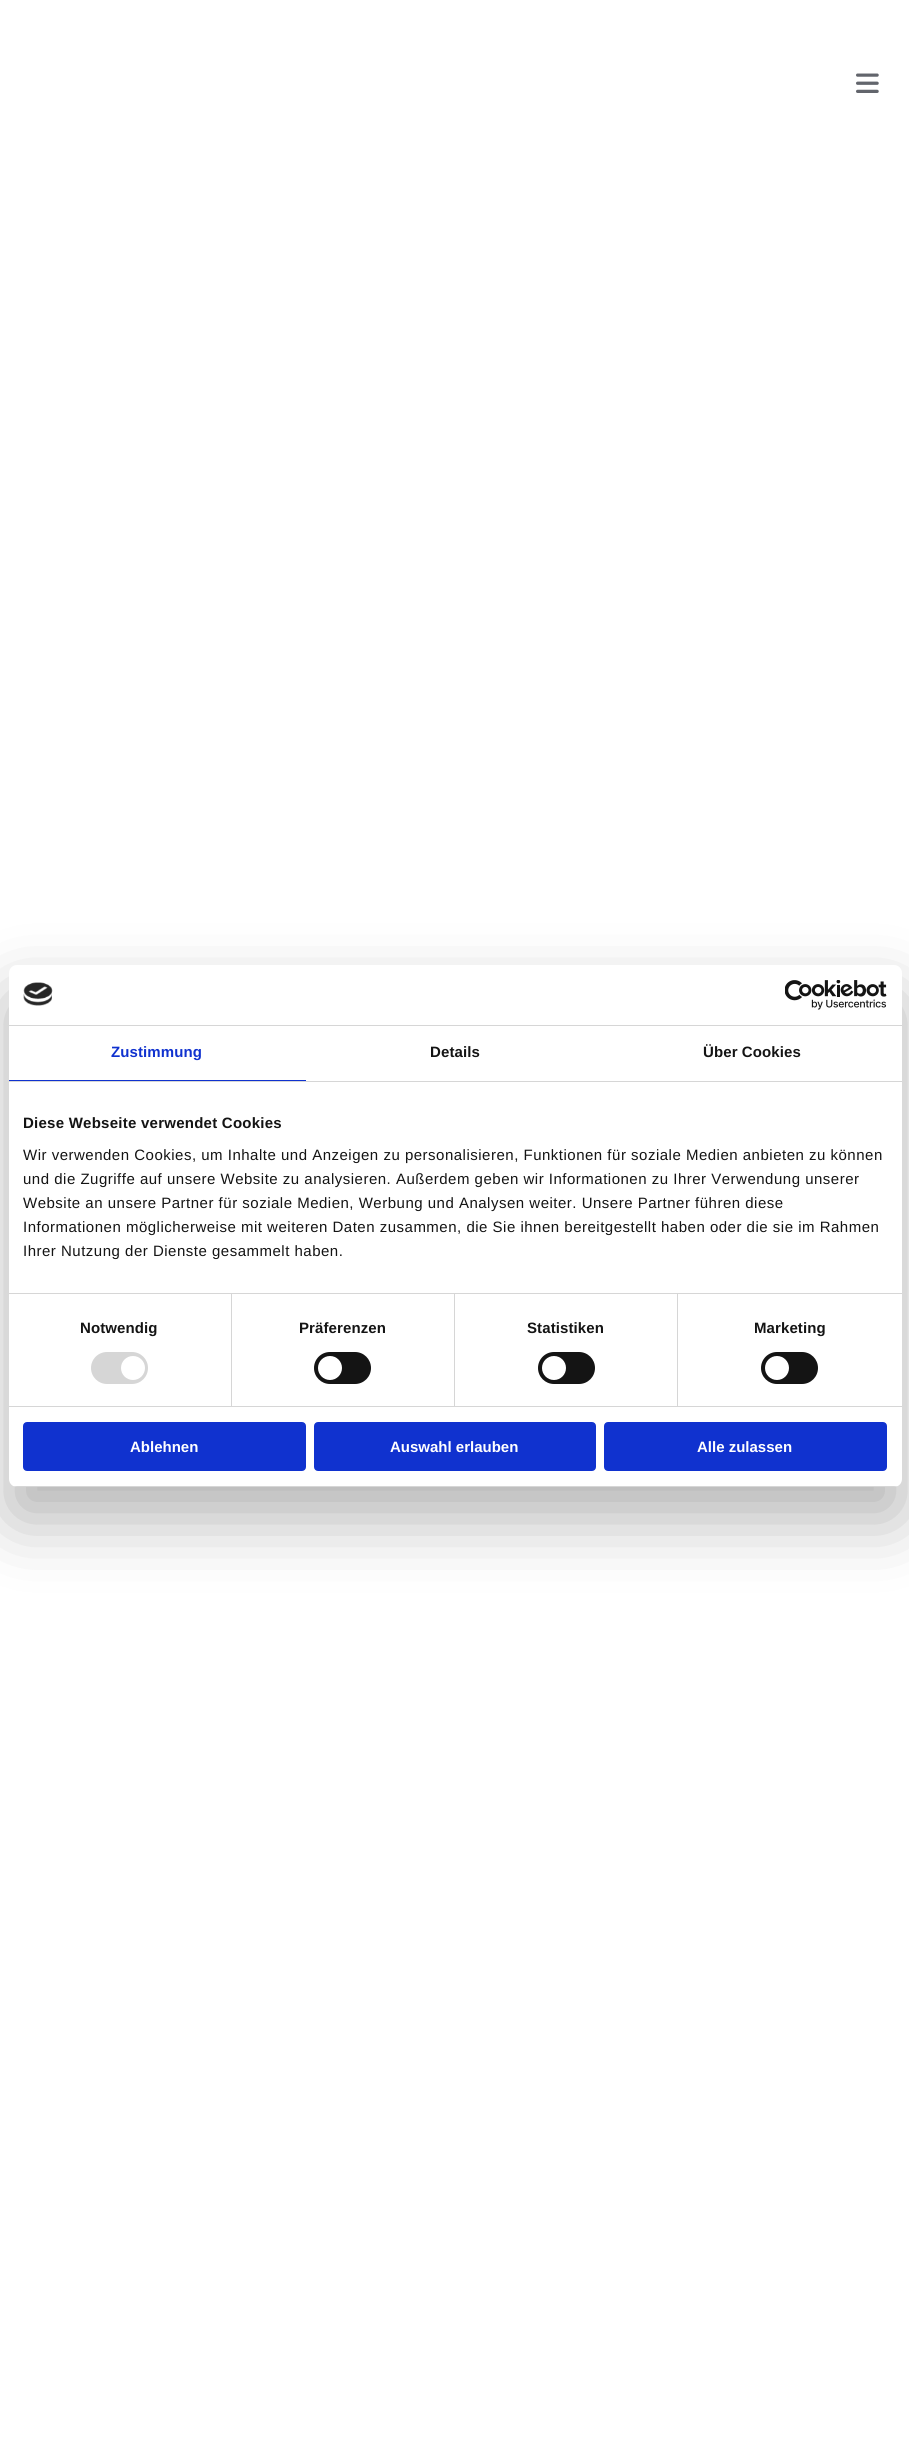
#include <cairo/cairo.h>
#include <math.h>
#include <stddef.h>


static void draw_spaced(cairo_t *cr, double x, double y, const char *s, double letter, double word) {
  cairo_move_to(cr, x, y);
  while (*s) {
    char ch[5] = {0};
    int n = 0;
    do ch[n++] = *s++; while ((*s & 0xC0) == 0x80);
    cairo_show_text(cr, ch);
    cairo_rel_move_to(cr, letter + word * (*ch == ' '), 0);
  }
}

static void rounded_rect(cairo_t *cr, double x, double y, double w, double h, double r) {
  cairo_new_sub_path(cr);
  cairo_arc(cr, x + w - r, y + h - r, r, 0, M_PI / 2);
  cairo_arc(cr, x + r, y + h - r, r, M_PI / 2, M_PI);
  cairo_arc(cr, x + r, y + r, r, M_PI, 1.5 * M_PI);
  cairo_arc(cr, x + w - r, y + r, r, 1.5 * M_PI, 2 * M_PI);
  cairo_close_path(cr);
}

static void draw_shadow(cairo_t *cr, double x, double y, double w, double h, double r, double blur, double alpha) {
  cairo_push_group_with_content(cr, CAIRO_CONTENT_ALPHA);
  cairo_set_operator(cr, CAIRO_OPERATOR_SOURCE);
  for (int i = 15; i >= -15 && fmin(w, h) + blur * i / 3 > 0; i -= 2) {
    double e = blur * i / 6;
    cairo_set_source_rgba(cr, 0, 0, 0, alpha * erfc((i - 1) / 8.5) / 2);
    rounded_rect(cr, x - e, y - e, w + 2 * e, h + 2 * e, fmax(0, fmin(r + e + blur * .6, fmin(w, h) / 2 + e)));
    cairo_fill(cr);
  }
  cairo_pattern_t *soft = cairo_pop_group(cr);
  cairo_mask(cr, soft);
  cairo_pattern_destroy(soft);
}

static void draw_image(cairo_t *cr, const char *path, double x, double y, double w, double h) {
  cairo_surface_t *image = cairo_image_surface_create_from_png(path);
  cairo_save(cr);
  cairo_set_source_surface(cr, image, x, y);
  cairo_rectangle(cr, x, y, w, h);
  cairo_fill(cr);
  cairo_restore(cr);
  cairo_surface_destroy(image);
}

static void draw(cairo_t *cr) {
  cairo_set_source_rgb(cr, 1, 1, 1);
  cairo_paint(cr);
  draw_image(cr, "images/1.png", 856, 73, 23, 20);
  cairo_set_source_rgb(cr, 0, 0, 0);
  draw_shadow(cr, 9, 997, 893, 522, 8, 34, 0.3);
  cairo_set_source_rgb(cr, 1, 1, 1);
  rounded_rect(cr, 9, 965, 893, 522, 8);
  cairo_fill(cr);
  cairo_set_source_rgb(cr, 214 / 255.0, 214 / 255.0, 214 / 255.0);
  cairo_rectangle(cr, 9, 1025, 893, 1);
  cairo_fill(cr);
  draw_image(cr, "images/2.png", 23, 982, 30, 24);
  draw_image(cr, "images/3.png", 785, 980, 102, 30);
  cairo_rectangle(cr, 9, 1081, 893, 1);
  cairo_fill(cr);
  cairo_set_source_rgb(cr, 16 / 255.0, 50 / 255.0, 207 / 255.0);
  cairo_rectangle(cr, 9, 1080, 297, 1);
  cairo_fill(cr);
  cairo_set_source_rgb(cr, 214 / 255.0, 214 / 255.0, 214 / 255.0);
  cairo_rectangle(cr, 9, 1293, 893, 1);
  cairo_fill(cr);
  cairo_rectangle(cr, 9, 1406, 893, 1);
  cairo_fill(cr);
  cairo_rectangle(cr, 231, 1294, 1, 112);
  cairo_fill(cr);
  rounded_rect(cr, 91, 1352, 57, 32, 16);
  cairo_fill(cr);
  cairo_set_source_rgb(cr, 1, 1, 1);
  cairo_arc(cr, 133, 1368, 12, 0, 2 * M_PI);
  cairo_fill(cr);
  cairo_set_source_rgb(cr, 214 / 255.0, 214 / 255.0, 214 / 255.0);
  cairo_rectangle(cr, 454, 1294, 1, 112);
  cairo_fill(cr);
  cairo_set_source_rgb(cr, 20 / 255.0, 20 / 255.0, 20 / 255.0);
  rounded_rect(cr, 314, 1352, 57, 32, 16);
  cairo_fill(cr);
  cairo_set_source_rgb(cr, 1, 1, 1);
  cairo_arc(cr, 330, 1368, 12, 0, 2 * M_PI);
  cairo_fill(cr);
  cairo_set_source_rgb(cr, 214 / 255.0, 214 / 255.0, 214 / 255.0);
  cairo_rectangle(cr, 677, 1294, 1, 112);
  cairo_fill(cr);
  cairo_set_source_rgb(cr, 20 / 255.0, 20 / 255.0, 20 / 255.0);
  rounded_rect(cr, 538, 1352, 57, 32, 16);
  cairo_fill(cr);
  cairo_set_source_rgb(cr, 1, 1, 1);
  cairo_arc(cr, 554, 1368, 12, 0, 2 * M_PI);
  cairo_fill(cr);
  cairo_set_source_rgb(cr, 20 / 255.0, 20 / 255.0, 20 / 255.0);
  rounded_rect(cr, 761, 1352, 57, 32, 16);
  cairo_fill(cr);
  cairo_set_source_rgb(cr, 1, 1, 1);
  cairo_arc(cr, 777, 1368, 12, 0, 2 * M_PI);
  cairo_fill(cr);
  cairo_save(cr);
  rounded_rect(cr, 9, 965, 893, 522, 8);
  cairo_clip(cr);
  cairo_set_source_rgb(cr, 214 / 255.0, 214 / 255.0, 214 / 255.0);
  cairo_rectangle(cr, 9, 1486, 893, 1);
  cairo_fill(cr);
  cairo_restore(cr);
  cairo_set_source_rgb(cr, 16 / 255.0, 50 / 255.0, 207 / 255.0);
  rounded_rect(cr, 24, 1423, 281, 47, 3);
  cairo_fill_preserve(cr);
  cairo_stroke(cr);
  rounded_rect(cr, 315, 1423, 280, 47, 3);
  cairo_fill_preserve(cr);
  cairo_stroke(cr);
  rounded_rect(cr, 605, 1423, 281, 47, 3);
  cairo_fill_preserve(cr);
  cairo_stroke(cr);
  cairo_select_font_face(cr, "Liberation Sans", CAIRO_FONT_SLANT_NORMAL, CAIRO_FONT_WEIGHT_BOLD);
  cairo_set_font_size(cr, 15);
  draw_spaced(cr, 111, 1057, "Zustimmung", 0.1, 0);
  cairo_set_source_rgb(cr, 20 / 255.0, 20 / 255.0, 20 / 255.0);
  draw_spaced(cr, 430, 1057, "Details", 0.1, 0);
  draw_spaced(cr, 703, 1057, "Über Cookies", 0.1, 0);
  draw_spaced(cr, 23, 1128, "Diese Webseite verwendet Cookies", 0.25, 0);
  cairo_select_font_face(cr, "Liberation Sans", CAIRO_FONT_SLANT_NORMAL, CAIRO_FONT_WEIGHT_NORMAL);
  draw_spaced(cr, 23, 1160, "Wir verwenden Cookies, um Inhalte und Anzeigen zu personalisieren, Funktionen für soziale Medien anbieten zu können", 0.5, 0);
  draw_spaced(cr, 23, 1184, "und die Zugriffe auf unsere Website zu analysieren. Außerdem geben wir Informationen zu Ihrer Verwendung unserer", 0.5, 0);
  draw_spaced(cr, 23, 1208, "Website an unsere Partner für soziale Medien, Werbung und Analysen weiter. Unsere Partner führen diese", 0.5, 0);
  draw_spaced(cr, 23, 1232, "Informationen möglicherweise mit weiteren Daten zusammen, die Sie ihnen bereitgestellt haben oder die sie im Rahmen", 0.5, 0);
  draw_spaced(cr, 23, 1256, "Ihrer Nutzung der Dienste gesammelt haben.", 0.5, 0);
  cairo_select_font_face(cr, "Liberation Sans", CAIRO_FONT_SLANT_NORMAL, CAIRO_FONT_WEIGHT_BOLD);
  draw_spaced(cr, 80, 1333, "Notwendig", 0.1, 0);
  draw_spaced(cr, 299, 1333, "Präferenzen", 0.1, 0);
  draw_spaced(cr, 527, 1333, "Statistiken", 0.1, 0);
  draw_spaced(cr, 754, 1333, "Marketing", 0.1, 0);
  cairo_set_source_rgb(cr, 1, 1, 1);
  cairo_move_to(cr, 130, 1452);
  cairo_show_text(cr, "Ablehnen");
  cairo_move_to(cr, 390, 1452);
  cairo_show_text(cr, "Auswahl erlauben");
  cairo_move_to(cr, 697, 1452);
  cairo_show_text(cr, "Alle zulassen");
}

int main(void) {
  cairo_surface_t *surface = cairo_image_surface_create(CAIRO_FORMAT_RGB24, 909, 2451);
  cairo_t *cr = cairo_create(surface);
  cairo_font_options_t *options = cairo_font_options_create();
  cairo_font_options_set_hint_metrics(options, CAIRO_HINT_METRICS_OFF);
  cairo_font_options_set_hint_style(options, CAIRO_HINT_STYLE_NONE);
  cairo_set_font_options(cr, options);
  cairo_set_miter_limit(cr, 4);
  draw(cr);
  cairo_surface_write_to_png(surface, "out.png");
  cairo_font_options_destroy(options);
  cairo_destroy(cr);
  cairo_surface_destroy(surface);
  return 0;
}
